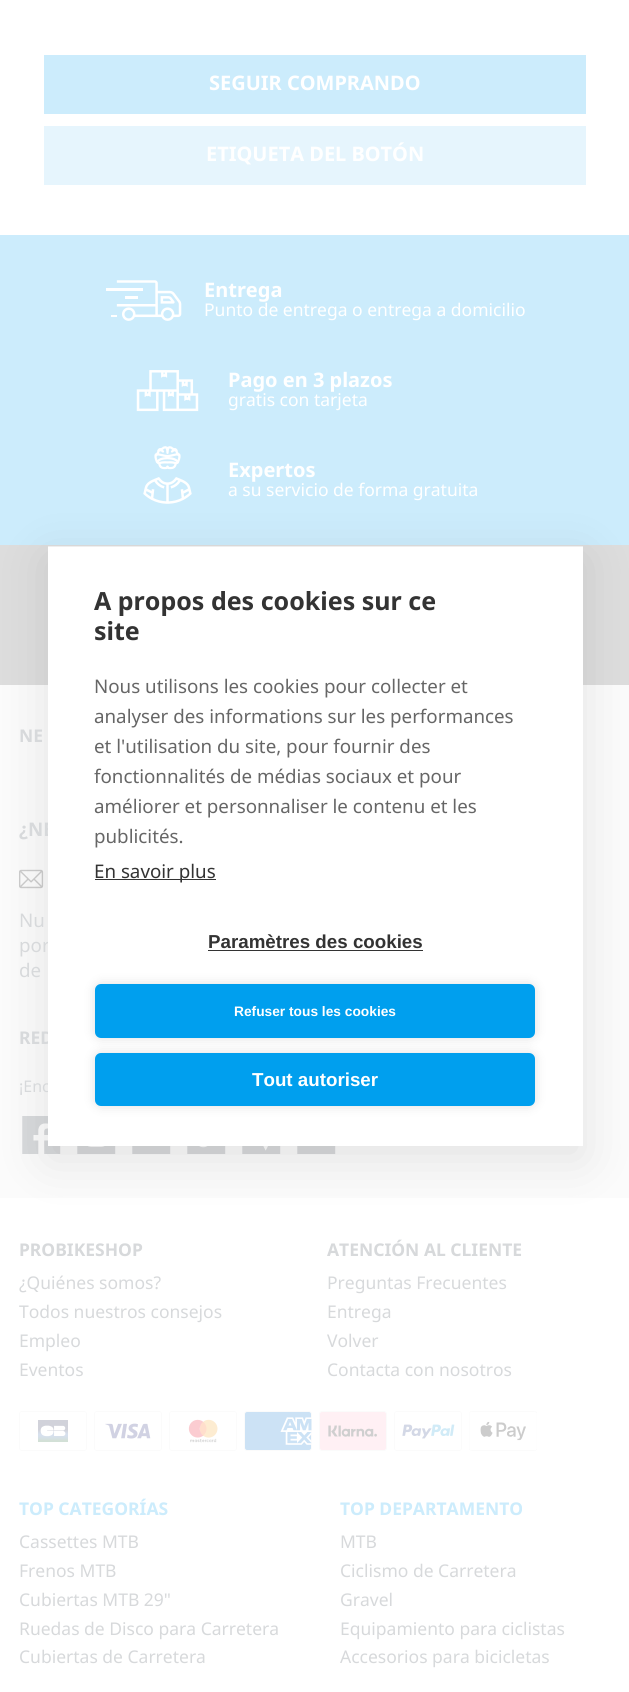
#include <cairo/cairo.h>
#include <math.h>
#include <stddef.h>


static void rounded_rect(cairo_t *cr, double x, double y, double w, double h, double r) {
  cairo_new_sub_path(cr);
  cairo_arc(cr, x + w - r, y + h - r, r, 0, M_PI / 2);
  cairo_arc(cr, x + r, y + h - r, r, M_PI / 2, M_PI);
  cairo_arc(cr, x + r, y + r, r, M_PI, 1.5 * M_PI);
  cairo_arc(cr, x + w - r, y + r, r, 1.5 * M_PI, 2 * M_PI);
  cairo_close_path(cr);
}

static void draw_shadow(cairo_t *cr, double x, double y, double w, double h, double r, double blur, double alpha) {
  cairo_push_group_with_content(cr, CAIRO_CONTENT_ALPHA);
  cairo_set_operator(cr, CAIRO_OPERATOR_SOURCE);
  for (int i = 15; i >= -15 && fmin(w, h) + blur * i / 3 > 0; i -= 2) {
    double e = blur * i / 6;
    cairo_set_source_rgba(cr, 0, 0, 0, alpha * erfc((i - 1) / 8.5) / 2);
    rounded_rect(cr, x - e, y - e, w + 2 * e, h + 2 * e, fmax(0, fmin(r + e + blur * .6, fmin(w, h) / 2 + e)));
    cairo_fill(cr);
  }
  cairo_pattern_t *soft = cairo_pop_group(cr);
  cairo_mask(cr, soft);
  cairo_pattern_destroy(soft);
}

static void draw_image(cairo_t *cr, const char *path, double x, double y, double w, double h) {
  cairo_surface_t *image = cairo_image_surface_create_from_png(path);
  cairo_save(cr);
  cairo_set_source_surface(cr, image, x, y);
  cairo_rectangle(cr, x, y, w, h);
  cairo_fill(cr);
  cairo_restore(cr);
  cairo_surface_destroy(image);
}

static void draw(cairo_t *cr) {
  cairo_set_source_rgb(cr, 1, 1, 1);
  cairo_paint(cr);
  cairo_set_source_rgb(cr, 204 / 255.0, 236 / 255.0, 252 / 255.0);
  cairo_rectangle(cr, 44, 55, 542, 59);
  cairo_fill(cr);
  cairo_set_source_rgb(cr, 230 / 255.0, 245 / 255.0, 253 / 255.0);
  cairo_rectangle(cr, 44, 126, 542, 59);
  cairo_fill(cr);
  cairo_set_source_rgb(cr, 204 / 255.0, 236 / 255.0, 252 / 255.0);
  cairo_rectangle(cr, 0, 235, 629, 310);
  cairo_fill(cr);
  draw_image(cr, "images/1.png", 106, 280, 76, 41);
  draw_image(cr, "images/2.png", 136, 370, 63, 42);
  draw_image(cr, "images/3.png", 143, 446, 49, 58);
  cairo_set_source_rgb(cr, 221 / 255.0, 221 / 255.0, 221 / 255.0);
  cairo_rectangle(cr, 0, 545, 629, 140);
  cairo_fill(cr);
  cairo_set_source_rgb(cr, 251 / 255.0, 251 / 255.0, 251 / 255.0);
  cairo_rectangle(cr, 0, 685, 629, 513);
  cairo_fill(cr);
  draw_image(cr, "images/4.png", 19, 869, 25, 20);
  draw_image(cr, "images/5.png", 22, 1116, 39, 38);
  draw_image(cr, "images/6.png", 77, 1146, 39, 8);
  draw_image(cr, "images/7.png", 132, 1146, 39, 8);
  draw_image(cr, "images/8.png", 187, 1146, 39, 8);
  draw_image(cr, "images/9.png", 242, 1146, 39, 8);
  draw_image(cr, "images/7.png", 297, 1146, 39, 8);
  cairo_set_source_rgb(cr, 0, 0, 0);
  draw_shadow(cr, 48, 559, 535, 600, 0, 25, 0.1);
  cairo_set_source_rgb(cr, 238 / 255.0, 238 / 255.0, 238 / 255.0);
  cairo_rectangle(cr, 48, 546, 535, 1);
  cairo_fill(cr);
  draw_image(cr, "images/10.png", 19, 1411, 68, 40);
  draw_image(cr, "images/11.png", 94, 1411, 68, 40);
  draw_image(cr, "images/12.png", 169, 1411, 68, 40);
  draw_image(cr, "images/13.png", 244, 1411, 68, 40);
  draw_image(cr, "images/14.png", 319, 1411, 68, 40);
  draw_image(cr, "images/15.png", 394, 1411, 68, 40);
  draw_image(cr, "images/16.png", 469, 1411, 68, 40);
  cairo_select_font_face(cr, "Noto Sans", CAIRO_FONT_SLANT_NORMAL, CAIRO_FONT_WEIGHT_BOLD);
  cairo_set_font_size(cr, 20);
  cairo_set_source_rgb(cr, 1, 1, 1);
  cairo_move_to(cr, 209, 90);
  cairo_show_text(cr, "SEGUIR COMPRANDO");
  cairo_move_to(cr, 206, 161);
  cairo_show_text(cr, "ETIQUETA DEL BOTÓN");
  cairo_move_to(cr, 204, 297);
  cairo_show_text(cr, "Entrega");
  cairo_select_font_face(cr, "Noto Sans", CAIRO_FONT_SLANT_NORMAL, CAIRO_FONT_WEIGHT_NORMAL);
  cairo_set_font_size(cr, 17.5);
  cairo_move_to(cr, 204, 316);
  cairo_show_text(cr, "Punto de entrega o entrega a domicilio");
  cairo_select_font_face(cr, "Noto Sans", CAIRO_FONT_SLANT_NORMAL, CAIRO_FONT_WEIGHT_BOLD);
  cairo_set_font_size(cr, 20);
  cairo_move_to(cr, 228, 387);
  cairo_show_text(cr, "Pago en 3 plazos");
  cairo_select_font_face(cr, "Noto Sans", CAIRO_FONT_SLANT_NORMAL, CAIRO_FONT_WEIGHT_NORMAL);
  cairo_set_font_size(cr, 17.5);
  cairo_move_to(cr, 228, 406);
  cairo_show_text(cr, "gratis con tarjeta");
  cairo_select_font_face(cr, "Noto Sans", CAIRO_FONT_SLANT_NORMAL, CAIRO_FONT_WEIGHT_BOLD);
  cairo_set_font_size(cr, 20);
  cairo_move_to(cr, 228, 477);
  cairo_show_text(cr, "Expertos");
  cairo_select_font_face(cr, "Noto Sans", CAIRO_FONT_SLANT_NORMAL, CAIRO_FONT_WEIGHT_NORMAL);
  cairo_set_font_size(cr, 17.5);
  cairo_move_to(cr, 228, 496);
  cairo_show_text(cr, "a su servicio de forma gratuita");
  cairo_select_font_face(cr, "Noto Sans", CAIRO_FONT_SLANT_NORMAL, CAIRO_FONT_WEIGHT_BOLD);
  cairo_set_source_rgb(cr, 215 / 255.0, 217 / 255.0, 219 / 255.0);
  cairo_move_to(cr, 19, 742);
  cairo_show_text(cr, "NE");
  cairo_set_font_size(cr, 18.75);
  cairo_move_to(cr, 19, 836);
  cairo_show_text(cr, "¿NE");
  cairo_select_font_face(cr, "Noto Sans", CAIRO_FONT_SLANT_NORMAL, CAIRO_FONT_WEIGHT_NORMAL);
  cairo_move_to(cr, 19, 927);
  cairo_show_text(cr, "Nu");
  cairo_move_to(cr, 19, 952);
  cairo_show_text(cr, "por");
  cairo_move_to(cr, 19, 977);
  cairo_show_text(cr, "de");
  cairo_select_font_face(cr, "Noto Sans", CAIRO_FONT_SLANT_NORMAL, CAIRO_FONT_WEIGHT_BOLD);
  cairo_set_font_size(cr, 17.5);
  cairo_move_to(cr, 19, 1044);
  cairo_show_text(cr, "RED");
  cairo_select_font_face(cr, "Noto Sans", CAIRO_FONT_SLANT_NORMAL, CAIRO_FONT_WEIGHT_NORMAL);
  cairo_set_font_size(cr, 16);
  cairo_move_to(cr, 19, 1092);
  cairo_show_text(cr, "¡Enc");
  cairo_set_source_rgb(cr, 1, 1, 1);
  cairo_rectangle(cr, 48, 547, 535, 599);
  cairo_fill(cr);
  cairo_select_font_face(cr, "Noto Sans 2", CAIRO_FONT_SLANT_NORMAL, CAIRO_FONT_WEIGHT_BOLD);
  cairo_set_font_size(cr, 25);
  cairo_set_source_rgb(cr, 51 / 255.0, 51 / 255.0, 51 / 255.0);
  cairo_move_to(cr, 94, 610);
  cairo_show_text(cr, "A propos des cookies sur ce");
  cairo_move_to(cr, 94, 640);
  cairo_show_text(cr, "site");
  cairo_select_font_face(cr, "Noto Sans 2", CAIRO_FONT_SLANT_NORMAL, CAIRO_FONT_WEIGHT_NORMAL);
  cairo_set_font_size(cr, 18.75);
  cairo_set_source_rgb(cr, 102 / 255.0, 102 / 255.0, 102 / 255.0);
  cairo_move_to(cr, 94, 693);
  cairo_show_text(cr, "Nous utilisons les cookies pour collecter et");
  cairo_move_to(cr, 94, 723);
  cairo_show_text(cr, "analyser des informations sur les performances");
  cairo_move_to(cr, 94, 753);
  cairo_show_text(cr, "et l'utilisation du site, pour fournir des");
  cairo_move_to(cr, 94, 783);
  cairo_show_text(cr, "fonctionnalités de médias sociaux et pour");
  cairo_move_to(cr, 94, 813);
  cairo_show_text(cr, "améliorer et personnaliser le contenu et les");
  cairo_move_to(cr, 94, 843);
  cairo_show_text(cr, "publicités.");
  cairo_set_source_rgb(cr, 51 / 255.0, 51 / 255.0, 51 / 255.0);
  cairo_rectangle(cr, 95, 879, 121, 1);
  cairo_fill(cr);
  cairo_move_to(cr, 94, 878);
  cairo_show_text(cr, "En savoir plus");
  cairo_select_font_face(cr, "Liberation Sans", CAIRO_FONT_SLANT_NORMAL, CAIRO_FONT_WEIGHT_BOLD);
  cairo_move_to(cr, 208, 948);
  cairo_show_text(cr, "Paramètres des cookies");
  cairo_rectangle(cr, 208, 950, 215, 1);
  cairo_fill(cr);
  cairo_set_source_rgb(cr, 0, 0, 0);
  draw_shadow(cr, 95, 984, 440, 54, 6, 6, 0.12);
  cairo_set_source_rgb(cr, 0, 159 / 255.0, 238 / 255.0);
  rounded_rect(cr, 95, 984, 440, 54, 6);
  cairo_fill(cr);
  cairo_set_font_size(cr, 13.75);
  cairo_set_source_rgb(cr, 1, 1, 1);
  cairo_move_to(cr, 234, 1016);
  cairo_show_text(cr, "Refuser tous les cookies");
  cairo_set_source_rgb(cr, 0, 0, 0);
  draw_shadow(cr, 95, 1053, 440, 53, 6, 6, 0.12);
  cairo_set_source_rgb(cr, 0, 159 / 255.0, 238 / 255.0);
  rounded_rect(cr, 95, 1053, 440, 53, 6);
  cairo_fill(cr);
  cairo_set_font_size(cr, 18.75);
  cairo_set_source_rgb(cr, 1, 1, 1);
  cairo_move_to(cr, 252, 1086);
  cairo_show_text(cr, "Tout autoriser");
  cairo_select_font_face(cr, "Noto Sans", CAIRO_FONT_SLANT_NORMAL, CAIRO_FONT_WEIGHT_BOLD);
  cairo_set_font_size(cr, 17.5);
  cairo_set_source_rgb(cr, 215 / 255.0, 217 / 255.0, 219 / 255.0);
  cairo_move_to(cr, 19, 1256);
  cairo_show_text(cr, "PROBIKESHOP");
  cairo_select_font_face(cr, "Noto Sans", CAIRO_FONT_SLANT_NORMAL, CAIRO_FONT_WEIGHT_NORMAL);
  cairo_move_to(cr, 19, 1289);
  cairo_show_text(cr, "¿Quiénes somos?");
  cairo_move_to(cr, 19, 1318);
  cairo_show_text(cr, "Todos nuestros consejos");
  cairo_move_to(cr, 19, 1347);
  cairo_show_text(cr, "Empleo");
  cairo_move_to(cr, 19, 1376);
  cairo_show_text(cr, "Eventos");
  cairo_select_font_face(cr, "Noto Sans", CAIRO_FONT_SLANT_NORMAL, CAIRO_FONT_WEIGHT_BOLD);
  cairo_move_to(cr, 327, 1256);
  cairo_show_text(cr, "ATENCIÓN AL CLIENTE");
  cairo_select_font_face(cr, "Noto Sans", CAIRO_FONT_SLANT_NORMAL, CAIRO_FONT_WEIGHT_NORMAL);
  cairo_move_to(cr, 327, 1289);
  cairo_show_text(cr, "Preguntas Frecuentes");
  cairo_move_to(cr, 327, 1318);
  cairo_show_text(cr, "Entrega");
  cairo_move_to(cr, 327, 1347);
  cairo_show_text(cr, "Volver");
  cairo_move_to(cr, 327, 1376);
  cairo_show_text(cr, "Contacta con nosotros");
  cairo_select_font_face(cr, "Noto Sans", CAIRO_FONT_SLANT_NORMAL, CAIRO_FONT_WEIGHT_BOLD);
  cairo_set_source_rgb(cr, 204 / 255.0, 236 / 255.0, 252 / 255.0);
  cairo_move_to(cr, 19, 1515);
  cairo_show_text(cr, "TOP CATEGORÍAS");
  cairo_select_font_face(cr, "Noto Sans", CAIRO_FONT_SLANT_NORMAL, CAIRO_FONT_WEIGHT_NORMAL);
  cairo_set_source_rgb(cr, 215 / 255.0, 217 / 255.0, 219 / 255.0);
  cairo_move_to(cr, 19, 1548);
  cairo_show_text(cr, "Cassettes MTB");
  cairo_move_to(cr, 19, 1577);
  cairo_show_text(cr, "Frenos MTB");
  cairo_move_to(cr, 19, 1606);
  cairo_show_text(cr, "Cubiertas MTB 29\"");
  cairo_move_to(cr, 19, 1635);
  cairo_show_text(cr, "Ruedas de Disco para Carretera");
  cairo_move_to(cr, 19, 1663);
  cairo_show_text(cr, "Cubiertas de Carretera");
  cairo_select_font_face(cr, "Noto Sans", CAIRO_FONT_SLANT_NORMAL, CAIRO_FONT_WEIGHT_BOLD);
  cairo_set_source_rgb(cr, 204 / 255.0, 236 / 255.0, 252 / 255.0);
  cairo_move_to(cr, 340, 1515);
  cairo_show_text(cr, "TOP DEPARTAMENTO");
  cairo_select_font_face(cr, "Noto Sans", CAIRO_FONT_SLANT_NORMAL, CAIRO_FONT_WEIGHT_NORMAL);
  cairo_set_source_rgb(cr, 215 / 255.0, 217 / 255.0, 219 / 255.0);
  cairo_move_to(cr, 340, 1548);
  cairo_show_text(cr, "MTB");
  cairo_move_to(cr, 340, 1577);
  cairo_show_text(cr, "Ciclismo de Carretera");
  cairo_move_to(cr, 340, 1606);
  cairo_show_text(cr, "Gravel");
  cairo_move_to(cr, 340, 1635);
  cairo_show_text(cr, "Equipamiento para ciclistas");
  cairo_move_to(cr, 340, 1663);
  cairo_show_text(cr, "Accesorios para bicicletas");
}

int main(void) {
  cairo_surface_t *surface = cairo_image_surface_create(CAIRO_FORMAT_RGB24, 629, 1692);
  cairo_t *cr = cairo_create(surface);
  cairo_font_options_t *options = cairo_font_options_create();
  cairo_font_options_set_hint_metrics(options, CAIRO_HINT_METRICS_OFF);
  cairo_font_options_set_hint_style(options, CAIRO_HINT_STYLE_NONE);
  cairo_set_font_options(cr, options);
  cairo_set_miter_limit(cr, 4);
  draw(cr);
  cairo_surface_write_to_png(surface, "out.png");
  cairo_font_options_destroy(options);
  cairo_destroy(cr);
  cairo_surface_destroy(surface);
  return 0;
}
